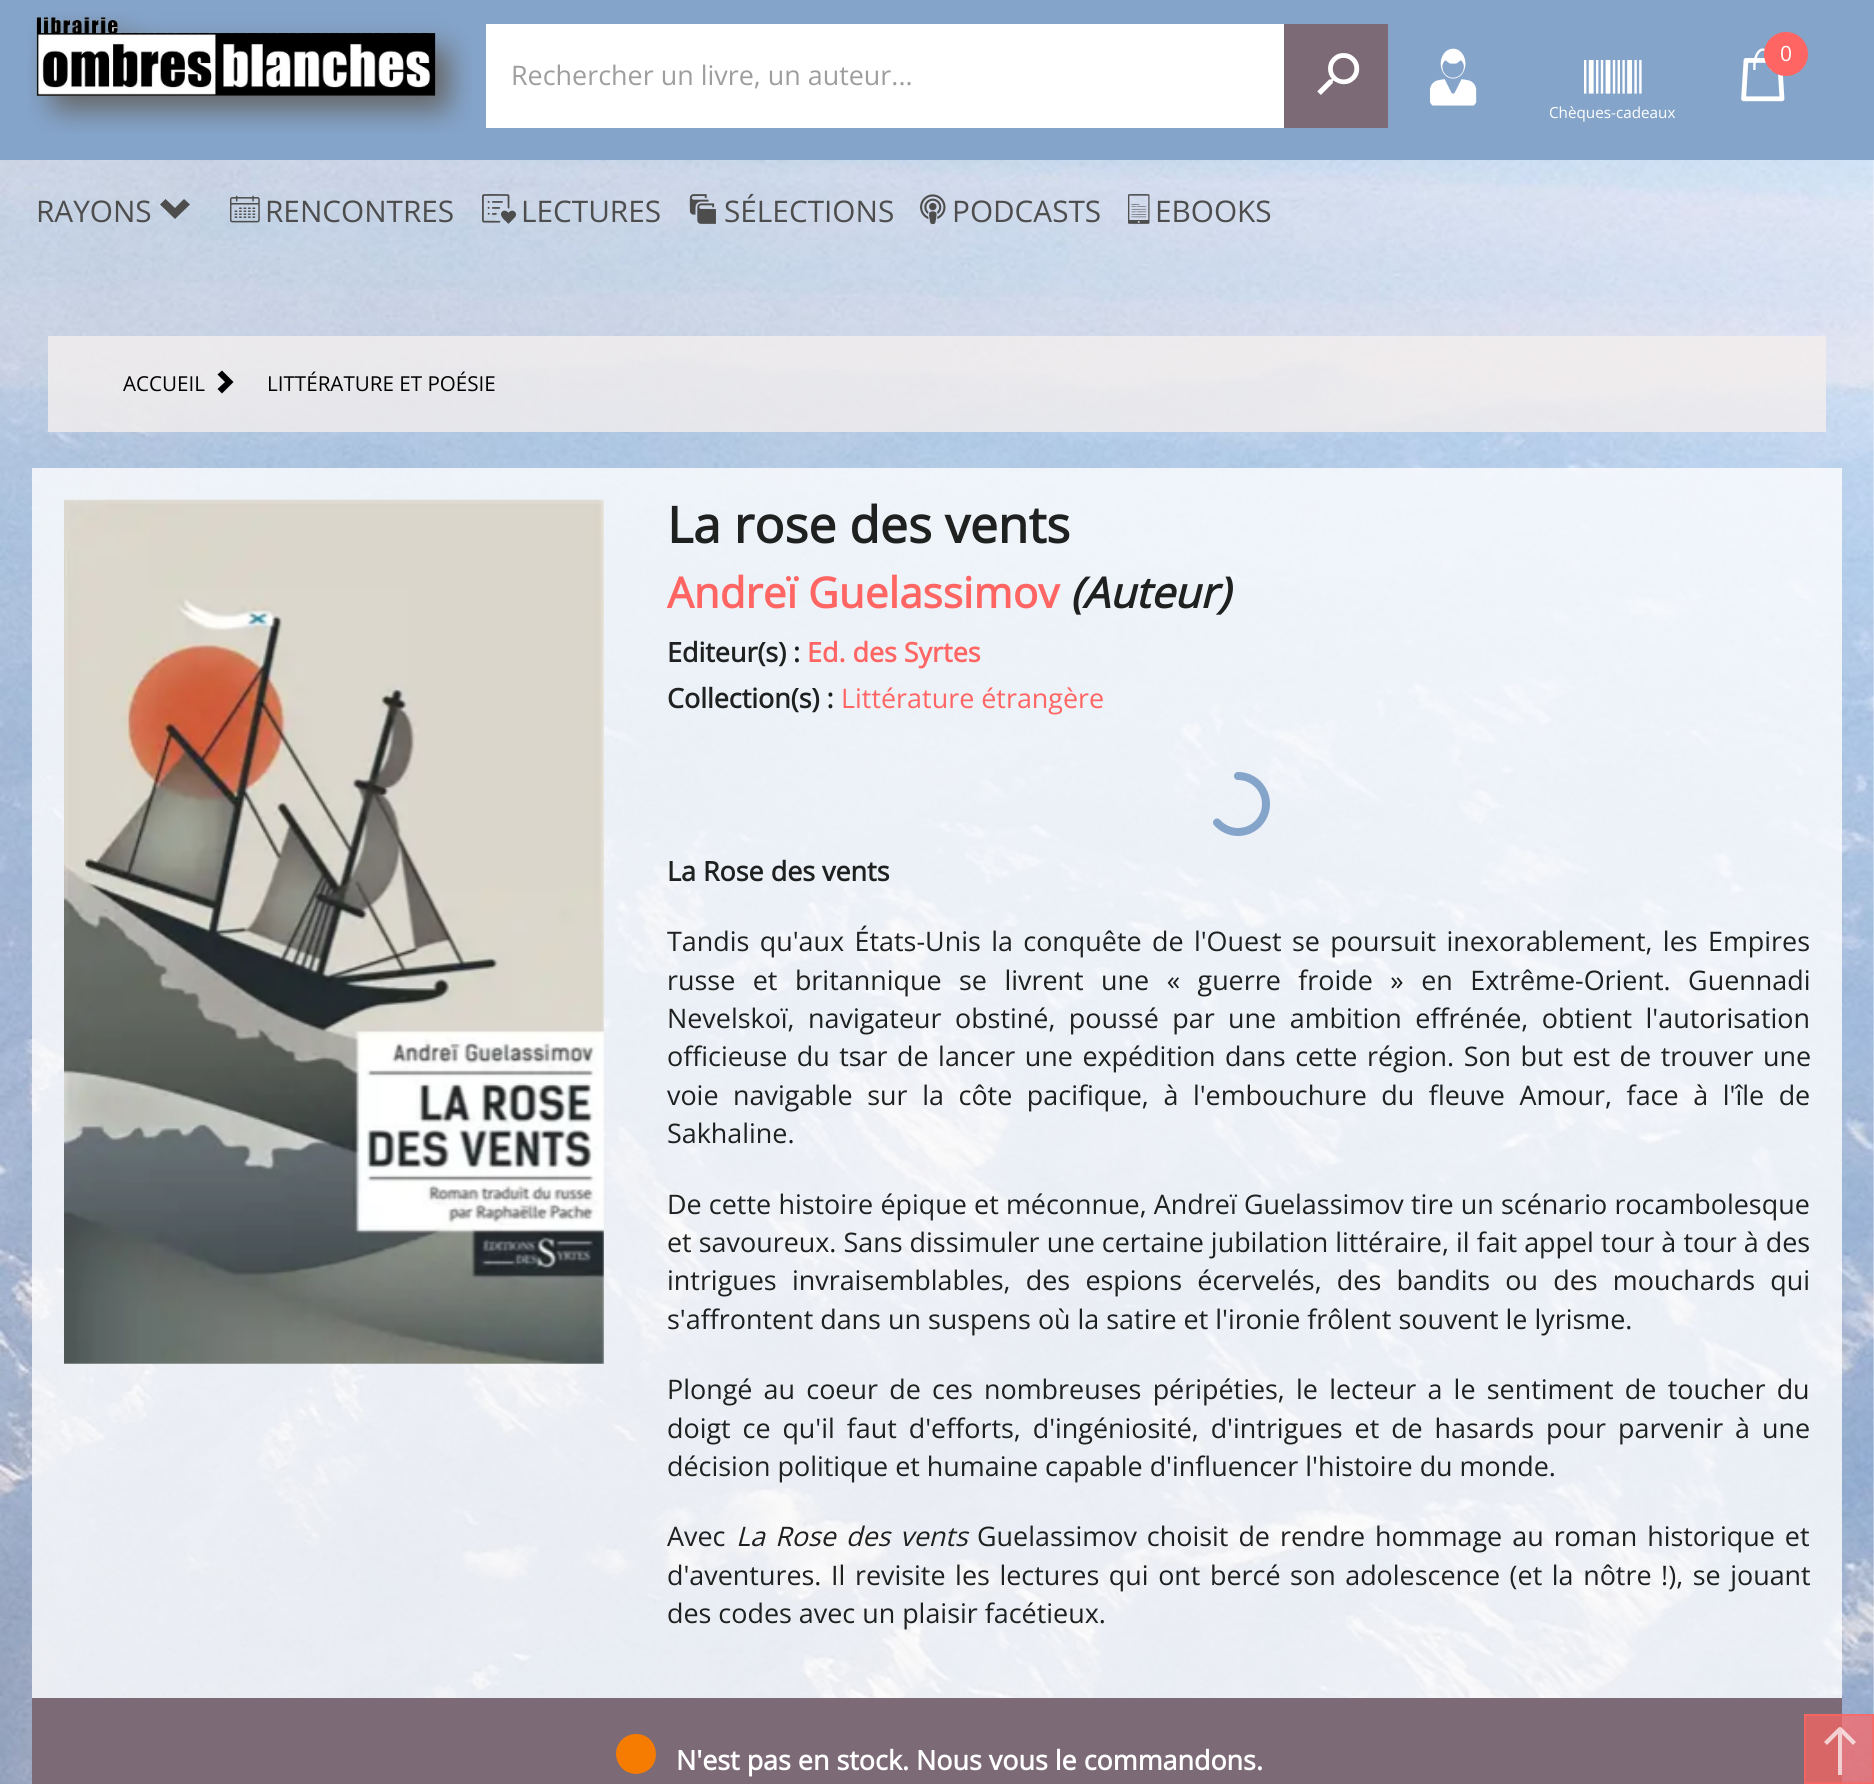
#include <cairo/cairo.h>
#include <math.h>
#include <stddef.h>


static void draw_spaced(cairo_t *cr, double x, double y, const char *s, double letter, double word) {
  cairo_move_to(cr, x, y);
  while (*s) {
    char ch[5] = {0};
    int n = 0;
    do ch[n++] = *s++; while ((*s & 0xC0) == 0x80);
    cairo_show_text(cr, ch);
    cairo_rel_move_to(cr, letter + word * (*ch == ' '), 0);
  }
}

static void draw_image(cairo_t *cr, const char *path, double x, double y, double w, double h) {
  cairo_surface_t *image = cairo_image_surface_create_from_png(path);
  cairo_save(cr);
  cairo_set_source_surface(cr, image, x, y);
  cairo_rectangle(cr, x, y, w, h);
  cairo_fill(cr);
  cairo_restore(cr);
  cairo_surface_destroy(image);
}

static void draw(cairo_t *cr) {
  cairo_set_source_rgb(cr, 1, 1, 1);
  cairo_paint(cr);
  draw_image(cr, "images/1.png", 0, 160, 1874, 1624);
  cairo_set_source_rgb(cr, 132 / 255.0, 164 / 255.0, 202 / 255.0);
  cairo_rectangle(cr, 0, 0, 1874, 160);
  cairo_fill(cr);
  draw_image(cr, "images/2.png", 28, 12, 444, 121);
  cairo_set_source_rgb(cr, 1, 1, 1);
  cairo_rectangle(cr, 486, 24, 798, 104);
  cairo_fill(cr);
  cairo_set_source_rgb(cr, 124 / 255.0, 106 / 255.0, 119 / 255.0);
  cairo_rectangle(cr, 1284, 24, 104, 104);
  cairo_fill(cr);
  draw_image(cr, "images/3.png", 1317, 53, 43, 42);
  draw_image(cr, "images/4.png", 1430, 48, 47, 58);
  draw_image(cr, "images/5.png", 1741, 48, 44, 54);
  cairo_set_source_rgb(cr, 1, 101 / 255.0, 98 / 255.0);
  cairo_arc(cr, 1786, 54, 22, 0, 2 * M_PI);
  cairo_fill(cr);
  draw_image(cr, "images/6.png", 1584, 60, 58, 34);
  cairo_set_source_rgb(cr, 77 / 255.0, 77 / 255.0, 77 / 255.0);
  cairo_new_path(cr);
  cairo_move_to(cr, 190, 204.5);
  cairo_line_to(cr, 184, 199);
  cairo_line_to(cr, 175, 208);
  cairo_line_to(cr, 165.5, 199);
  cairo_line_to(cr, 160, 204.5);
  cairo_line_to(cr, 175, 219);
  cairo_close_path(cr);
  cairo_fill(cr);
  draw_image(cr, "images/7.png", 230, 195, 30, 28);
  draw_image(cr, "images/8.png", 482, 194, 35, 30);
  draw_image(cr, "images/9.png", 689, 194, 27, 30);
  draw_image(cr, "images/10.png", 920, 194, 26, 31);
  draw_image(cr, "images/11.png", 1128, 194, 22, 30);
  cairo_set_source_rgba(cr, 243 / 255.0, 239 / 255.0, 237 / 255.0, 0.8);
  cairo_rectangle(cr, 48, 336, 1778, 96);
  cairo_fill(cr);
  cairo_set_source_rgb(cr, 0, 0, 0);
  cairo_new_path(cr);
  cairo_move_to(cr, 222, 370.5);
  cairo_line_to(cr, 217.5, 374.5);
  cairo_line_to(cr, 225, 382);
  cairo_line_to(cr, 217.5, 389);
  cairo_line_to(cr, 222, 393.5);
  cairo_line_to(cr, 233.5, 382);
  cairo_close_path(cr);
  cairo_fill(cr);
  cairo_set_source_rgba(cr, 1, 1, 1, 0.8);
  cairo_rectangle(cr, 32, 468, 1810, 1230);
  cairo_fill(cr);
  draw_image(cr, "images/12.png", 64, 499, 540, 865);
  cairo_new_path(cr);
  cairo_move_to(cr, 1238, 776);
  cairo_curve_to(cr, 1253.5, 776, 1266, 788.5, 1266, 804);
  cairo_curve_to(cr, 1266, 819.5, 1253.5, 832, 1238, 832);
  cairo_curve_to(cr, 1229.5, 832, 1222, 828, 1217, 822.5);
  cairo_set_source_rgb(cr, 132 / 255.0, 164 / 255.0, 202 / 255.0);
  cairo_set_line_width(cr, 8);
  cairo_set_line_cap(cr, CAIRO_LINE_CAP_ROUND);
  cairo_stroke(cr);
  cairo_set_source_rgb(cr, 124 / 255.0, 106 / 255.0, 119 / 255.0);
  cairo_rectangle(cr, 32, 1698, 1810, 86);
  cairo_fill(cr);
  cairo_set_source_rgb(cr, 245 / 255.0, 124 / 255.0, 0);
  cairo_new_path(cr);
  cairo_move_to(cr, 636, 1734);
  cairo_curve_to(cr, 624.5, 1734, 615.5, 1743.5, 616, 1755);
  cairo_curve_to(cr, 616.5, 1761.5, 620, 1767.5, 625.5, 1771);
  cairo_curve_to(cr, 630, 1773.5, 635, 1774.5, 640, 1773.5);
  cairo_curve_to(cr, 663.5, 1769, 660, 1734, 636, 1734);
  cairo_close_path(cr);
  cairo_fill(cr);
  cairo_set_source_rgba(cr, 1, 101 / 255.0, 98 / 255.0, 0.7);
  cairo_rectangle(cr, 1804, 1714, 70, 70);
  cairo_fill(cr);
  cairo_rectangle(cr, 1805, 1715, 68, 68);
  cairo_set_line_width(cr, 2);
  cairo_set_line_cap(cr, CAIRO_LINE_CAP_BUTT);
  cairo_stroke(cr);
  cairo_set_source_rgba(cr, 1, 1, 1, 0.7);
  cairo_new_path(cr);
  cairo_move_to(cr, 1856, 1742);
  cairo_line_to(cr, 1844, 1730);
  cairo_curve_to(cr, 1840, 1726, 1840, 1726, 1836, 1730);
  cairo_line_to(cr, 1824, 1742);
  cairo_line_to(cr, 1827, 1745);
  cairo_line_to(cr, 1838, 1734);
  cairo_line_to(cr, 1838, 1775);
  cairo_line_to(cr, 1842, 1775);
  cairo_line_to(cr, 1842, 1734);
  cairo_line_to(cr, 1853, 1745);
  cairo_close_path(cr);
  cairo_fill(cr);
  cairo_select_font_face(cr, "Open Sans", CAIRO_FONT_SLANT_NORMAL, CAIRO_FONT_WEIGHT_NORMAL);
  cairo_set_font_size(cr, 26.9);
  cairo_set_source_rgb(cr, 158 / 255.0, 158 / 255.0, 158 / 255.0);
  cairo_move_to(cr, 511, 85);
  cairo_show_text(cr, "Rechercher un livre, un auteur...");
  cairo_set_font_size(cr, 21);
  cairo_set_source_rgb(cr, 1, 1, 1);
  cairo_move_to(cr, 1780, 61);
  cairo_show_text(cr, "0");
  cairo_set_font_size(cr, 15.25);
  cairo_move_to(cr, 1549, 118);
  cairo_show_text(cr, "Chèques-cadeaux");
  cairo_set_font_size(cr, 29.75);
  cairo_set_source_rgb(cr, 77 / 255.0, 77 / 255.0, 77 / 255.0);
  cairo_move_to(cr, 36, 222);
  cairo_show_text(cr, "RAYONS");
  cairo_move_to(cr, 265, 222);
  cairo_show_text(cr, "RENCONTRES");
  cairo_move_to(cr, 521, 222);
  cairo_show_text(cr, "LECTURES");
  cairo_move_to(cr, 724, 222);
  cairo_show_text(cr, "SÉLECTIONS");
  cairo_move_to(cr, 952, 222);
  cairo_show_text(cr, "PODCASTS");
  cairo_move_to(cr, 1155, 222);
  cairo_show_text(cr, "EBOOKS");
  cairo_set_font_size(cr, 20.6);
  cairo_set_source_rgb(cr, 0, 0, 0);
  cairo_move_to(cr, 123, 391);
  cairo_show_text(cr, "ACCUEIL");
  cairo_move_to(cr, 267, 391);
  cairo_show_text(cr, "LITTÉRATURE ET POÉSIE");
  cairo_select_font_face(cr, "Open Sans", CAIRO_FONT_SLANT_NORMAL, CAIRO_FONT_WEIGHT_BOLD);
  cairo_set_font_size(cr, 50);
  cairo_set_source_rgb(cr, 31 / 255.0, 32 / 255.0, 32 / 255.0);
  cairo_move_to(cr, 667, 543);
  cairo_show_text(cr, "La rose des vents");
  cairo_set_font_size(cr, 42.25);
  cairo_set_source_rgb(cr, 1, 101 / 255.0, 98 / 255.0);
  cairo_move_to(cr, 667, 608);
  cairo_show_text(cr, "Andreï Guelassimov");
  cairo_select_font_face(cr, "Open Sans", CAIRO_FONT_SLANT_ITALIC, CAIRO_FONT_WEIGHT_BOLD);
  cairo_set_source_rgb(cr, 31 / 255.0, 32 / 255.0, 32 / 255.0);
  cairo_move_to(cr, 1070, 608);
  cairo_show_text(cr, "(Auteur)");
  cairo_select_font_face(cr, "Open Sans", CAIRO_FONT_SLANT_NORMAL, CAIRO_FONT_WEIGHT_BOLD);
  cairo_set_font_size(cr, 26.9);
  cairo_move_to(cr, 667, 662);
  cairo_show_text(cr, "Editeur(s) :");
  cairo_set_source_rgb(cr, 1, 101 / 255.0, 98 / 255.0);
  cairo_move_to(cr, 807, 662);
  cairo_show_text(cr, "Ed. des Syrtes");
  cairo_set_source_rgb(cr, 31 / 255.0, 32 / 255.0, 32 / 255.0);
  cairo_move_to(cr, 667, 708);
  cairo_show_text(cr, "Collection(s) :");
  cairo_select_font_face(cr, "Open Sans", CAIRO_FONT_SLANT_NORMAL, CAIRO_FONT_WEIGHT_NORMAL);
  cairo_set_source_rgb(cr, 1, 101 / 255.0, 98 / 255.0);
  cairo_move_to(cr, 841, 708);
  cairo_show_text(cr, "Littérature étrangère");
  cairo_select_font_face(cr, "Open Sans", CAIRO_FONT_SLANT_NORMAL, CAIRO_FONT_WEIGHT_BOLD);
  cairo_set_source_rgb(cr, 31 / 255.0, 32 / 255.0, 32 / 255.0);
  cairo_move_to(cr, 667, 881);
  cairo_show_text(cr, "La Rose des vents");
  cairo_select_font_face(cr, "Open Sans", CAIRO_FONT_SLANT_NORMAL, CAIRO_FONT_WEIGHT_NORMAL);
  draw_spaced(cr, 667, 951, "Tandis qu'aux États-Unis la conquête de l'Ouest se poursuit inexorablement, les Empires", 0, 3.4);
  draw_spaced(cr, 667, 990, "russe et britannique se livrent une « guerre froide » en Extrême-Orient. Guennadi", 0, 10.5);
  draw_spaced(cr, 667, 1028, "Nevelskoï, navigateur obstiné, poussé par une ambition effrénée, obtient l'autorisation", 0, 6.5);
  draw_spaced(cr, 667, 1066, "officieuse du tsar de lancer une expédition dans cette région. Son but est de trouver une", 0, 2.5);
  draw_spaced(cr, 667, 1105, "voie navigable sur la côte pacifique, à l'embouchure du fleuve Amour, face à l'île de", 0, 7.6);
  cairo_move_to(cr, 667, 1143);
  cairo_show_text(cr, "Sakhaline.");
  draw_spaced(cr, 667, 1214, "De cette histoire épique et méconnue, Andreï Guelassimov tire un scénario rocambolesque", 0, 0.25);
  draw_spaced(cr, 667, 1252, "et savoureux. Sans dissimuler une certaine jubilation littéraire, il fait appel tour à tour à des", 0, 0.1);
  draw_spaced(cr, 667, 1290, "intrigues invraisemblables, des espions écervelés, des bandits ou des mouchards qui", 0, 8.25);
  cairo_move_to(cr, 667, 1329);
  cairo_show_text(cr, "s'affrontent dans un suspens où la satire et l'ironie frôlent souvent le lyrisme.");
  draw_spaced(cr, 667, 1399, "Plongé au coeur de ces nombreuses péripéties, le lecteur a le sentiment de toucher du", 0, 4.25);
  draw_spaced(cr, 667, 1438, "doigt ce qu'il faut d'efforts, d'ingéniosité, d'intrigues et de hasards pour parvenir à une", 0, 4.9);
  cairo_move_to(cr, 667, 1476);
  cairo_show_text(cr, "décision politique et humaine capable d'influencer l'histoire du monde.");
  cairo_move_to(cr, 667, 1546);
  cairo_show_text(cr, "Avec");
  cairo_select_font_face(cr, "Open Sans", CAIRO_FONT_SLANT_ITALIC, CAIRO_FONT_WEIGHT_NORMAL);
  draw_spaced(cr, 736, 1546, "La Rose des vents", 0, 3);
  cairo_select_font_face(cr, "Open Sans", CAIRO_FONT_SLANT_NORMAL, CAIRO_FONT_WEIGHT_NORMAL);
  draw_spaced(cr, 977, 1546, "Guelassimov choisit de rendre hommage au roman historique et", 0, 3);
  draw_spaced(cr, 667, 1585, "d'aventures. Il revisite les lectures qui ont bercé son adolescence (et la nôtre !), se jouant", 0, 2.6);
  cairo_move_to(cr, 667, 1623);
  cairo_show_text(cr, "des codes avec un plaisir facétieux.");
  cairo_select_font_face(cr, "Open Sans", CAIRO_FONT_SLANT_NORMAL, CAIRO_FONT_WEIGHT_BOLD);
  cairo_set_source_rgb(cr, 1, 1, 1);
  cairo_move_to(cr, 676, 1770);
  cairo_show_text(cr, "N'est pas en stock. Nous vous le commandons.");
}

int main(void) {
  cairo_surface_t *surface = cairo_image_surface_create(CAIRO_FORMAT_RGB24, 1874, 1784);
  cairo_t *cr = cairo_create(surface);
  cairo_font_options_t *options = cairo_font_options_create();
  cairo_font_options_set_hint_metrics(options, CAIRO_HINT_METRICS_OFF);
  cairo_font_options_set_hint_style(options, CAIRO_HINT_STYLE_NONE);
  cairo_set_font_options(cr, options);
  cairo_set_miter_limit(cr, 4);
  draw(cr);
  cairo_surface_write_to_png(surface, "out.png");
  cairo_font_options_destroy(options);
  cairo_destroy(cr);
  cairo_surface_destroy(surface);
  return 0;
}
